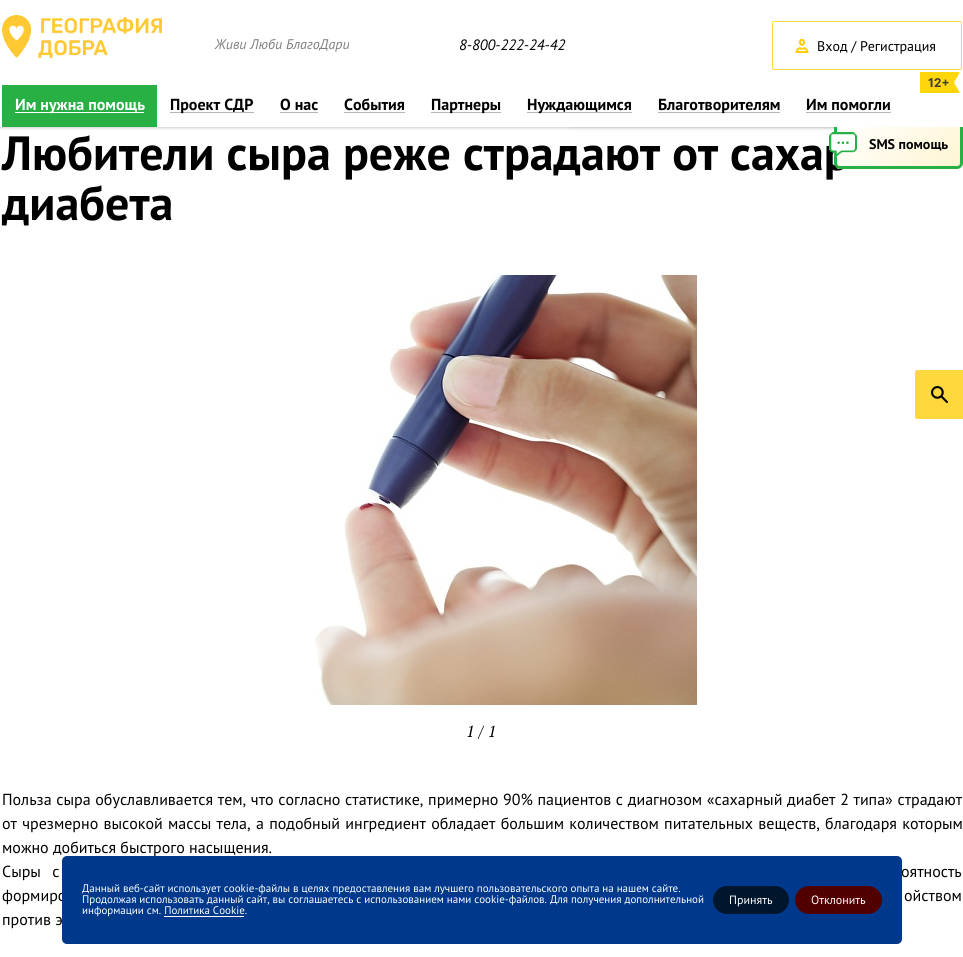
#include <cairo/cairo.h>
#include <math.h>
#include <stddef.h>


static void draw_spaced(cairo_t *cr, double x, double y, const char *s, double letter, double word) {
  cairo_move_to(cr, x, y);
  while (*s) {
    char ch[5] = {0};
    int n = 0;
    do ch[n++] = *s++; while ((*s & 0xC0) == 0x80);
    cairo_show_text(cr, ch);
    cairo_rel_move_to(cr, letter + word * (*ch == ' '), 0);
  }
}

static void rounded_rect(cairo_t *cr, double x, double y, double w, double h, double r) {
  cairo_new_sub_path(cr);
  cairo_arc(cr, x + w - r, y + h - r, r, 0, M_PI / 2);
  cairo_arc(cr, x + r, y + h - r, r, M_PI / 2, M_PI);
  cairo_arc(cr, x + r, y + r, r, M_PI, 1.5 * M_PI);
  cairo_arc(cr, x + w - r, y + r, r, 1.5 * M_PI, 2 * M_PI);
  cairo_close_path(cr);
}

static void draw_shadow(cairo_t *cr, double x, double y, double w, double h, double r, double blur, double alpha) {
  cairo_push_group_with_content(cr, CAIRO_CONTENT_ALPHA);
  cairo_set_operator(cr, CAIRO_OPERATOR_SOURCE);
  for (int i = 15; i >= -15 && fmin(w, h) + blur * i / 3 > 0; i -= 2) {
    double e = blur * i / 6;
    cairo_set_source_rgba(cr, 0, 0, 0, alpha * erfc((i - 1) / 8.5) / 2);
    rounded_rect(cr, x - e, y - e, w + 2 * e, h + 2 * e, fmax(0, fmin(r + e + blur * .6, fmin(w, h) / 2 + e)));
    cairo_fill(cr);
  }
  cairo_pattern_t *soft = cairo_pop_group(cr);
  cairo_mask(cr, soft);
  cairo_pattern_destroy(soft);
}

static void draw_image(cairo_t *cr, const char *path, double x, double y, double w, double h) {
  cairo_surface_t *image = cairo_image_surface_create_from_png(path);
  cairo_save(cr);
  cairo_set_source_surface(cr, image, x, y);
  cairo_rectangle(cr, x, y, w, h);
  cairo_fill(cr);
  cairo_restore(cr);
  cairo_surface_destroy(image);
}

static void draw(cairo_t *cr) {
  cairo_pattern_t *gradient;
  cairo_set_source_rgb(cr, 1, 1, 1);
  cairo_paint(cr);
  cairo_set_source_rgb(cr, 0, 0, 0);
  draw_shadow(cr, 0, 1, 963, 127, 0, 1.5, 0.2);
  draw_shadow(cr, 571, -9, 392, 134, 0, 3, 0.25);
  draw_image(cr, "images/5.png", 314, 275, 383, 430);
  cairo_set_source_rgb(cr, 1, 216 / 255.0, 61 / 255.0);
  cairo_new_path(cr);
  cairo_move_to(cr, 917, 370);
  cairo_line_to(cr, 963, 370);
  cairo_line_to(cr, 963, 419);
  cairo_line_to(cr, 917, 419);
  cairo_curve_to(cr, 916, 419, 915, 418, 915, 417);
  cairo_line_to(cr, 915, 372);
  cairo_curve_to(cr, 915, 371, 916, 370, 917, 370);
  cairo_close_path(cr);
  cairo_fill(cr);
  draw_image(cr, "images/6.png", 931, 386, 17, 17);
  cairo_select_font_face(cr, "PT Sans", CAIRO_FONT_SLANT_NORMAL, CAIRO_FONT_WEIGHT_BOLD);
  cairo_set_font_size(cr, 48);
  cairo_set_source_rgb(cr, 0, 0, 0);
  cairo_move_to(cr, 2, 170);
  cairo_show_text(cr, "Любители сыра реже страдают от сахар");
  cairo_save(cr);
  cairo_new_path(cr);
  cairo_move_to(cr, 834, 123);
  cairo_line_to(cr, 963, 123);
  cairo_line_to(cr, 963, 163);
  cairo_curve_to(cr, 963, 166.5, 960.5, 169, 957, 169);
  cairo_line_to(cr, 840, 169);
  cairo_curve_to(cr, 836.5, 169, 834, 166.5, 834, 163);
  cairo_close_path(cr);
  cairo_clip(cr);
  gradient = cairo_pattern_create_linear(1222, 381, 944, 37);
  cairo_pattern_add_color_stop_rgba(gradient, 0, 254 / 255.0, 215 / 255.0, 77 / 255.0, 1);
  cairo_pattern_add_color_stop_rgba(gradient, 1, 1, 1, 1, 1);
  cairo_set_source(cr, gradient);
  cairo_pattern_destroy(gradient);
  cairo_new_path(cr);
  cairo_move_to(cr, 837, 123);
  cairo_line_to(cr, 963, 123);
  cairo_line_to(cr, 963, 163);
  cairo_curve_to(cr, 963, 166.5, 960.5, 169, 957, 169);
  cairo_line_to(cr, 837, 169);
  cairo_close_path(cr);
  cairo_fill(cr);
  cairo_restore(cr);
  cairo_set_source_rgb(cr, 40 / 255.0, 176 / 255.0, 69 / 255.0);
  cairo_set_fill_rule(cr, CAIRO_FILL_RULE_EVEN_ODD);
  cairo_new_path(cr);
  cairo_move_to(cr, 834, 123);
  cairo_line_to(cr, 963, 123);
  cairo_line_to(cr, 963, 163);
  cairo_curve_to(cr, 963, 166, 960, 169, 957, 169);
  cairo_line_to(cr, 840, 169);
  cairo_curve_to(cr, 837, 169, 834, 166, 834, 163);
  cairo_close_path(cr);
  cairo_move_to(cr, 837, 123);
  cairo_line_to(cr, 960, 123);
  cairo_line_to(cr, 960, 163);
  cairo_curve_to(cr, 960, 165, 959, 166, 957, 166);
  cairo_line_to(cr, 840, 166);
  cairo_curve_to(cr, 838, 166, 837, 165, 837, 163);
  cairo_close_path(cr);
  cairo_fill(cr);
  cairo_set_source_rgb(cr, 1, 1, 1);
  cairo_rectangle(cr, 0, 0, 963, 127);
  cairo_fill(cr);
  draw_image(cr, "images/3.png", 920, 72, 40, 21);
  cairo_set_font_size(cr, 16);
  cairo_set_source_rgb(cr, 0, 0, 0);
  cairo_move_to(cr, 806, 110);
  cairo_show_text(cr, "Им помогли");
  cairo_set_source_rgb(cr, 182 / 255.0, 182 / 255.0, 182 / 255.0);
  cairo_rectangle(cr, 806, 112, 85, 1);
  cairo_fill(cr);
  cairo_rectangle(cr, 658, 112, 122, 1);
  cairo_fill(cr);
  cairo_set_source_rgb(cr, 0, 0, 0);
  cairo_move_to(cr, 658, 110);
  cairo_show_text(cr, "Благотворителям");
  cairo_set_source_rgb(cr, 182 / 255.0, 182 / 255.0, 182 / 255.0);
  cairo_rectangle(cr, 527, 112, 105, 1);
  cairo_fill(cr);
  cairo_set_source_rgb(cr, 0, 0, 0);
  cairo_move_to(cr, 527, 110);
  cairo_show_text(cr, "Нуждающимся");
  cairo_set_source_rgb(cr, 182 / 255.0, 182 / 255.0, 182 / 255.0);
  cairo_rectangle(cr, 431, 112, 70, 1);
  cairo_fill(cr);
  cairo_set_source_rgb(cr, 0, 0, 0);
  cairo_move_to(cr, 431, 110);
  cairo_show_text(cr, "Партнеры");
  cairo_move_to(cr, 344, 110);
  cairo_show_text(cr, "События");
  cairo_set_source_rgb(cr, 182 / 255.0, 182 / 255.0, 182 / 255.0);
  cairo_rectangle(cr, 344, 112, 61, 1);
  cairo_fill(cr);
  cairo_set_source_rgb(cr, 0, 0, 0);
  cairo_move_to(cr, 280, 110);
  cairo_show_text(cr, "О нас");
  cairo_set_source_rgb(cr, 182 / 255.0, 182 / 255.0, 182 / 255.0);
  cairo_rectangle(cr, 280, 112, 38, 1);
  cairo_fill(cr);
  cairo_rectangle(cr, 170, 112, 84, 1);
  cairo_fill(cr);
  cairo_set_source_rgb(cr, 0, 0, 0);
  cairo_move_to(cr, 170, 110);
  cairo_show_text(cr, "Проект СДР");
  cairo_set_source_rgb(cr, 40 / 255.0, 176 / 255.0, 69 / 255.0);
  cairo_rectangle(cr, 2, 85, 155, 42);
  cairo_fill(cr);
  cairo_set_source_rgb(cr, 1, 1, 1);
  cairo_rectangle(cr, 15, 112, 129, 1);
  cairo_fill(cr);
  cairo_move_to(cr, 15, 110);
  cairo_show_text(cr, "Им нужна помощь");
  draw_image(cr, "images/2.png", 795, 38, 14, 16);
  rounded_rect(cr, 772.5, 21.5, 189, 48, 1.5);
  cairo_set_source_rgb(cr, 1, 218 / 255.0, 65 / 255.0);
  cairo_set_line_width(cr, 1);
  cairo_stroke(cr);
  cairo_select_font_face(cr, "PT Sans", CAIRO_FONT_SLANT_NORMAL, CAIRO_FONT_WEIGHT_NORMAL);
  cairo_set_font_size(cr, 14);
  cairo_set_source_rgb(cr, 0, 0, 0);
  cairo_move_to(cr, 817, 51);
  cairo_show_text(cr, "Вход / Регистрация");
  cairo_select_font_face(cr, "PT Sans", CAIRO_FONT_SLANT_ITALIC, CAIRO_FONT_WEIGHT_NORMAL);
  cairo_set_font_size(cr, 15);
  cairo_move_to(cr, 459, 50);
  cairo_show_text(cr, "8-800-222-24-42");
  cairo_set_font_size(cr, 14);
  cairo_set_source_rgb(cr, 128 / 255.0, 128 / 255.0, 128 / 255.0);
  cairo_move_to(cr, 215, 49);
  cairo_show_text(cr, "Живи Люби БлагоДари");
  draw_image(cr, "images/1.png", 2, 15, 160, 43);
  draw_image(cr, "images/4.png", 829, 132, 28, 25);
  cairo_select_font_face(cr, "PT Sans", CAIRO_FONT_SLANT_NORMAL, CAIRO_FONT_WEIGHT_BOLD);
  cairo_set_source_rgb(cr, 0, 0, 0);
  cairo_move_to(cr, 869, 149);
  cairo_show_text(cr, "SMS помощь");
  cairo_set_font_size(cr, 48);
  cairo_move_to(cr, 2, 220);
  cairo_show_text(cr, "диабета");
  cairo_select_font_face(cr, "PT Serif", CAIRO_FONT_SLANT_ITALIC, CAIRO_FONT_WEIGHT_NORMAL);
  cairo_set_font_size(cr, 16);
  cairo_move_to(cr, 466, 737);
  cairo_show_text(cr, "1 / 1");
  cairo_select_font_face(cr, "PT Sans", CAIRO_FONT_SLANT_NORMAL, CAIRO_FONT_WEIGHT_NORMAL);
  draw_spaced(cr, 2, 805, "Польза сыра обуславливается тем, что согласно статистике, примерно 90% пациентов с диагнозом «сахарный диабет 2 типа» страдают", 0, 0.4);
  draw_spaced(cr, 2, 829, "от чрезмерно высокой массы тела, а подобный ингредиент обладает большим количеством питательных веществ, благодаря которым", 0, 1);
  cairo_move_to(cr, 2, 853);
  cairo_show_text(cr, "можно добиться быстрого насыщения.");
  draw_spaced(cr, 2, 877, "Сыры с", 0, 7);
  draw_spaced(cr, 901, 877, "оятность", 0, 7);
  draw_spaced(cr, 2, 901, "формиро", 0, 1);
  draw_spaced(cr, 904, 901, "ойством", 0, 1);
  cairo_move_to(cr, 2, 925);
  cairo_show_text(cr, "против э");
  cairo_set_source_rgb(cr, 0, 56 / 255.0, 139 / 255.0);
  rounded_rect(cr, 62, 856, 840, 88, 5);
  cairo_fill(cr);
  cairo_set_font_size(cr, 11);
  cairo_set_source_rgb(cr, 1, 1, 1);
  cairo_move_to(cr, 82, 892);
  cairo_show_text(cr, "Данный веб-сайт использует cookie-файлы в целях предоставления вам лучшего пользовательского опыта на нашем сайте.");
  cairo_move_to(cr, 82, 903);
  cairo_show_text(cr, "Продолжая использовать данный сайт, вы соглашаетесь с использованием нами cookie-файлов. Для получения дополнительной");
  cairo_move_to(cr, 82, 914);
  cairo_show_text(cr, "информации см. Политика Cookie.");
  cairo_rectangle(cr, 164, 916, 80, 1);
  cairo_fill(cr);
  cairo_set_source_rgb(cr, 0, 22 / 255.0, 45 / 255.0);
  rounded_rect(cr, 713, 886, 76, 28, 14);
  cairo_fill(cr);
  cairo_set_font_size(cr, 12);
  cairo_set_source_rgb(cr, 1, 1, 1);
  cairo_move_to(cr, 729, 904);
  cairo_show_text(cr, "Принять");
  cairo_set_source_rgb(cr, 81 / 255.0, 0, 0);
  rounded_rect(cr, 795, 886, 87, 28, 14);
  cairo_fill(cr);
  cairo_set_source_rgb(cr, 1, 1, 1);
  cairo_move_to(cr, 811, 904);
  cairo_show_text(cr, "Отклонить");
}

int main(void) {
  cairo_surface_t *surface = cairo_image_surface_create(CAIRO_FORMAT_RGB24, 963, 957);
  cairo_t *cr = cairo_create(surface);
  cairo_font_options_t *options = cairo_font_options_create();
  cairo_font_options_set_hint_metrics(options, CAIRO_HINT_METRICS_OFF);
  cairo_font_options_set_hint_style(options, CAIRO_HINT_STYLE_NONE);
  cairo_set_font_options(cr, options);
  cairo_set_miter_limit(cr, 4);
  draw(cr);
  cairo_surface_write_to_png(surface, "out.png");
  cairo_font_options_destroy(options);
  cairo_destroy(cr);
  cairo_surface_destroy(surface);
  return 0;
}
